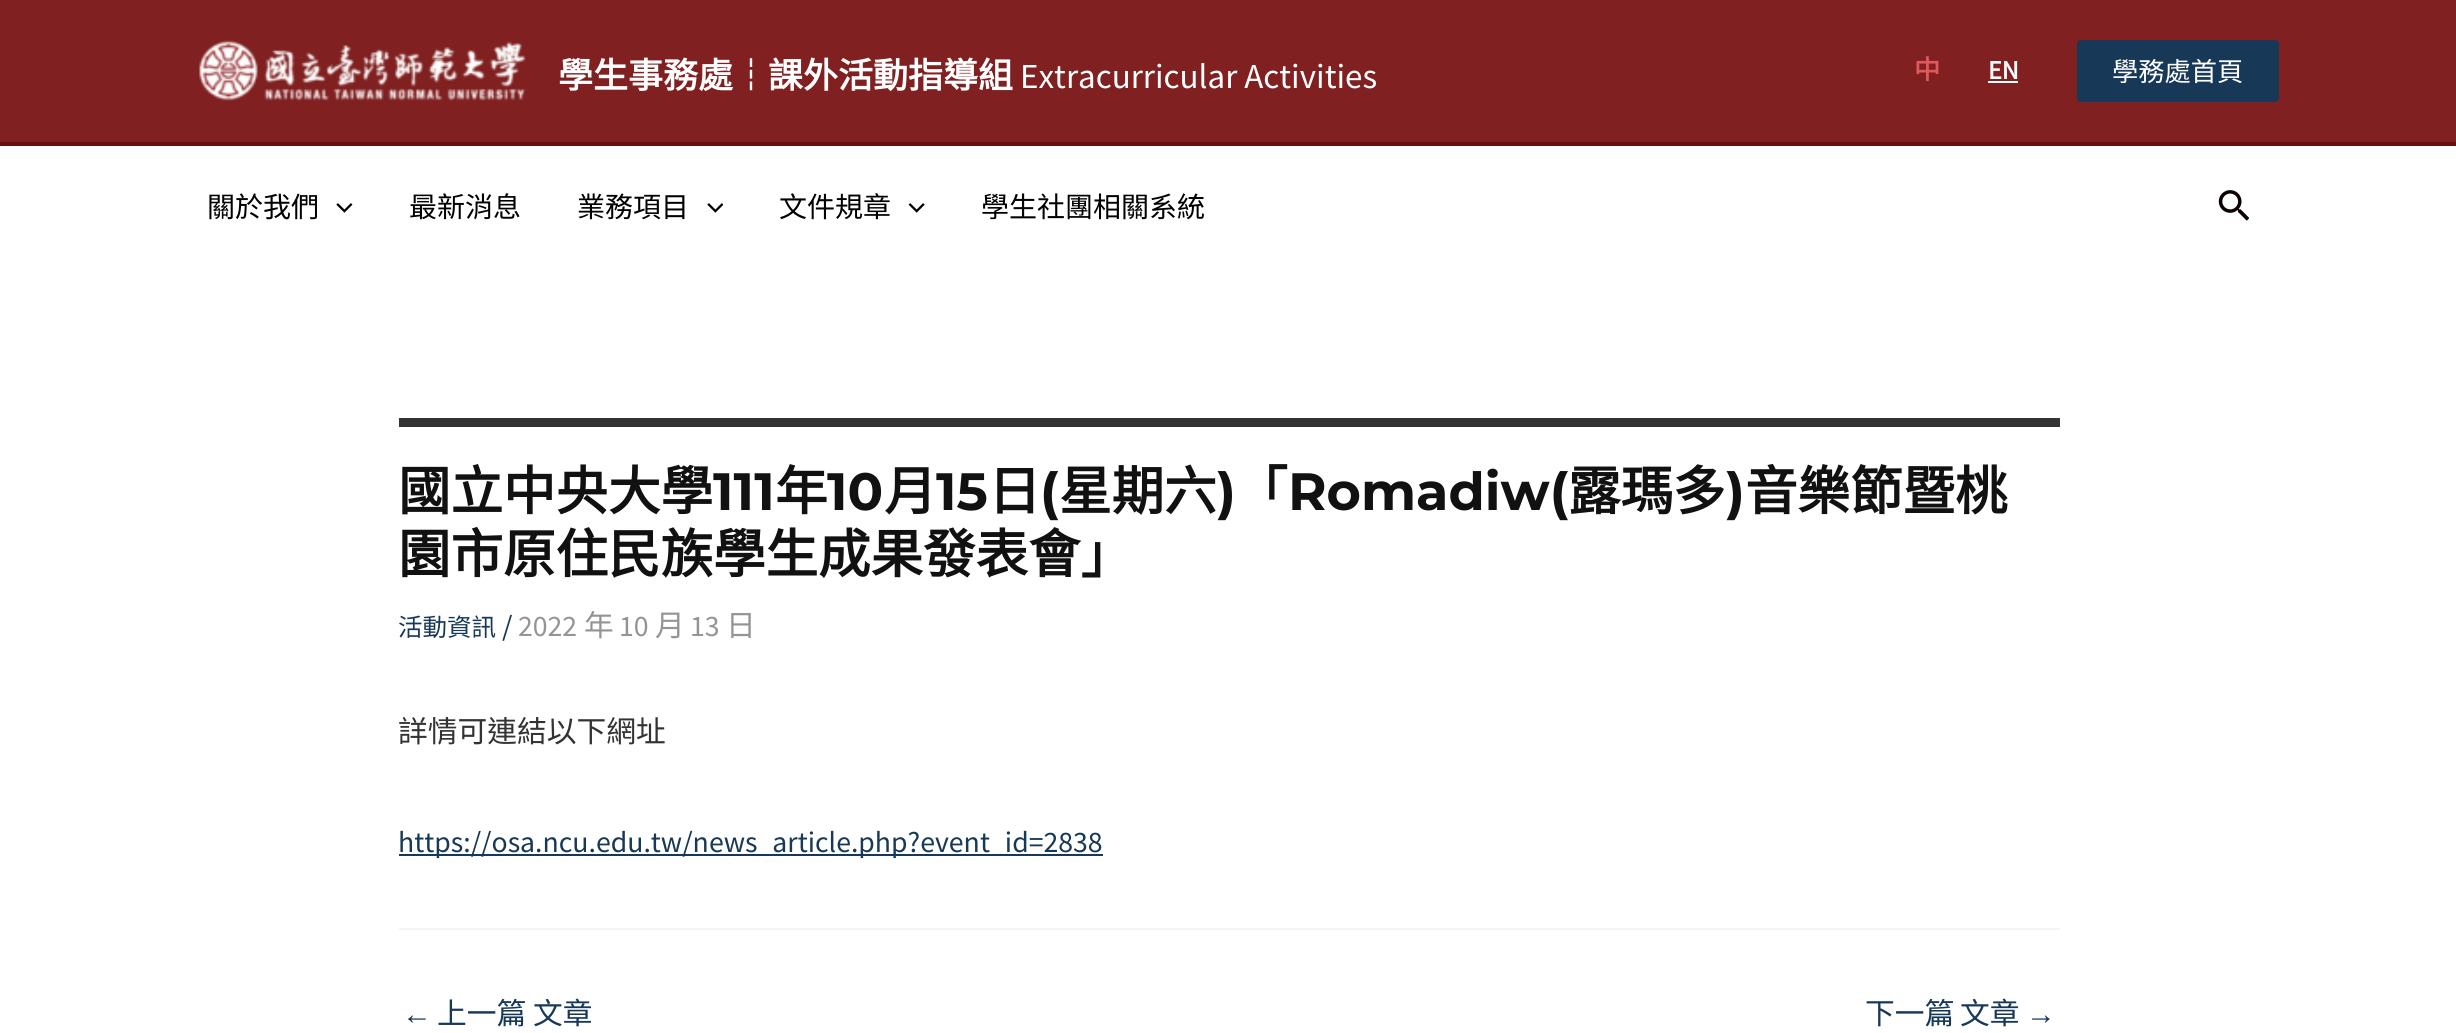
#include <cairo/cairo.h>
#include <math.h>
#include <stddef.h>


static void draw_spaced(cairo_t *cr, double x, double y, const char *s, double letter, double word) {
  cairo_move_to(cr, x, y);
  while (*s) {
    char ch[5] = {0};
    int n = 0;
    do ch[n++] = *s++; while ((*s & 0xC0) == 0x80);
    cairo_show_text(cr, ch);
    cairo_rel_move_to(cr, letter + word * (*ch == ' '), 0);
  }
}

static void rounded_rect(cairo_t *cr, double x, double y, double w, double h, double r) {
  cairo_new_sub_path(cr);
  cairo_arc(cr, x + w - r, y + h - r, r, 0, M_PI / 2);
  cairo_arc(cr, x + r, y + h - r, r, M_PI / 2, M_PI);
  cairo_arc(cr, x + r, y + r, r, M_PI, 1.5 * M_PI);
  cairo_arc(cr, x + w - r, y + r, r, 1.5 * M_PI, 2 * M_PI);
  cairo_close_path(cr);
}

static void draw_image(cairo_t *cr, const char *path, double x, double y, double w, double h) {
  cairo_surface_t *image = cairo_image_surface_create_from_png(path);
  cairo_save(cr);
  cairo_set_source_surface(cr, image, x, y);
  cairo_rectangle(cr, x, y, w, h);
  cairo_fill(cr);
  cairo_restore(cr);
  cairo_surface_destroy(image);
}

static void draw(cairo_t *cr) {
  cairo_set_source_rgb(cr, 1, 1, 1);
  cairo_paint(cr);
  cairo_set_source_rgb(cr, 128 / 255.0, 32 / 255.0, 32 / 255.0);
  cairo_rectangle(cr, 0, 0, 2456, 142);
  cairo_fill(cr);
  cairo_set_source_rgb(cr, 101 / 255.0, 17 / 255.0, 17 / 255.0);
  cairo_rectangle(cr, 0, 142, 2456, 4);
  cairo_fill(cr);
  draw_image(cr, "images/1.png", 199, 40, 327, 61);
  cairo_set_source_rgb(cr, 1, 1, 1);
  cairo_rectangle(cr, 1988, 81, 30, 2);
  cairo_fill(cr);
  cairo_set_source_rgb(cr, 23 / 255.0, 56 / 255.0, 87 / 255.0);
  rounded_rect(cr, 2077, 40, 202, 62, 4);
  cairo_fill(cr);
  draw_image(cr, "images/2.png", 336, 203, 17, 10);
  draw_image(cr, "images/3.png", 707, 203, 16, 10);
  draw_image(cr, "images/4.png", 908, 203, 17, 10);
  draw_image(cr, "images/5.png", 2218, 190, 31, 31);
  cairo_set_source_rgb(cr, 51 / 255.0, 51 / 255.0, 51 / 255.0);
  cairo_rectangle(cr, 399, 418, 1661, 9);
  cairo_fill(cr);
  cairo_set_source_rgb(cr, 23 / 255.0, 56 / 255.0, 87 / 255.0);
  cairo_rectangle(cr, 399, 854, 704, 2);
  cairo_fill(cr);
  cairo_set_source_rgb(cr, 242 / 255.0, 245 / 255.0, 247 / 255.0);
  cairo_rectangle(cr, 399, 928, 1661, 2);
  cairo_fill(cr);
  cairo_select_font_face(cr, "Noto Sans CJK TC", CAIRO_FONT_SLANT_NORMAL, CAIRO_FONT_WEIGHT_BOLD);
  cairo_set_font_size(cr, 35);
  cairo_set_source_rgb(cr, 1, 1, 1);
  cairo_move_to(cr, 558, 88);
  cairo_show_text(cr, "學生事務處┆課外活動指導組");
  cairo_select_font_face(cr, "Source Sans Pro", CAIRO_FONT_SLANT_NORMAL, CAIRO_FONT_WEIGHT_NORMAL);
  cairo_move_to(cr, 1020, 88);
  cairo_show_text(cr, "Extracurricular Activities");
  cairo_select_font_face(cr, "Noto Sans CJK TC", CAIRO_FONT_SLANT_NORMAL, CAIRO_FONT_WEIGHT_BOLD);
  cairo_set_font_size(cr, 26.25);
  cairo_set_source_rgb(cr, 222 / 255.0, 89 / 255.0, 89 / 255.0);
  cairo_move_to(cr, 1914, 79);
  cairo_show_text(cr, "中");
  cairo_select_font_face(cr, "Source Sans Pro", CAIRO_FONT_SLANT_NORMAL, CAIRO_FONT_WEIGHT_BOLD);
  cairo_set_source_rgb(cr, 1, 1, 1);
  cairo_move_to(cr, 1988, 79);
  cairo_show_text(cr, "EN");
  cairo_select_font_face(cr, "Noto Sans CJK TC", CAIRO_FONT_SLANT_NORMAL, CAIRO_FONT_WEIGHT_NORMAL);
  cairo_move_to(cr, 2112, 81);
  cairo_show_text(cr, "學務處首頁");
  cairo_set_font_size(cr, 28);
  cairo_set_source_rgb(cr, 0, 0, 0);
  cairo_move_to(cr, 207, 217);
  cairo_show_text(cr, "關於我們");
  cairo_move_to(cr, 409, 217);
  cairo_show_text(cr, "最新消息");
  cairo_move_to(cr, 577, 217);
  cairo_show_text(cr, "業務項目");
  cairo_move_to(cr, 779, 217);
  cairo_show_text(cr, "文件規章");
  cairo_move_to(cr, 981, 217);
  cairo_show_text(cr, "學生社團相關系統");
  cairo_select_font_face(cr, "Noto Sans CJK TC", CAIRO_FONT_SLANT_NORMAL, CAIRO_FONT_WEIGHT_BOLD);
  cairo_set_font_size(cr, 52.5);
  cairo_set_source_rgb(cr, 17 / 255.0, 17 / 255.0, 17 / 255.0);
  cairo_move_to(cr, 398, 510);
  cairo_show_text(cr, "國立中央大學");
  cairo_select_font_face(cr, "Montserrat Thin", CAIRO_FONT_SLANT_NORMAL, CAIRO_FONT_WEIGHT_NORMAL);
  cairo_move_to(cr, 713, 510);
  cairo_show_text(cr, "111");
  cairo_select_font_face(cr, "Noto Sans CJK TC", CAIRO_FONT_SLANT_NORMAL, CAIRO_FONT_WEIGHT_BOLD);
  cairo_move_to(cr, 775, 510);
  cairo_show_text(cr, "年");
  cairo_select_font_face(cr, "Montserrat Thin", CAIRO_FONT_SLANT_NORMAL, CAIRO_FONT_WEIGHT_NORMAL);
  cairo_move_to(cr, 827, 510);
  cairo_show_text(cr, "10");
  cairo_select_font_face(cr, "Noto Sans CJK TC", CAIRO_FONT_SLANT_NORMAL, CAIRO_FONT_WEIGHT_BOLD);
  cairo_move_to(cr, 884, 510);
  cairo_show_text(cr, "月");
  cairo_select_font_face(cr, "Montserrat Thin", CAIRO_FONT_SLANT_NORMAL, CAIRO_FONT_WEIGHT_NORMAL);
  cairo_move_to(cr, 936, 510);
  cairo_show_text(cr, "15");
  cairo_select_font_face(cr, "Noto Sans CJK TC", CAIRO_FONT_SLANT_NORMAL, CAIRO_FONT_WEIGHT_BOLD);
  cairo_move_to(cr, 988, 510);
  cairo_show_text(cr, "日");
  cairo_select_font_face(cr, "Montserrat Thin", CAIRO_FONT_SLANT_NORMAL, CAIRO_FONT_WEIGHT_NORMAL);
  cairo_move_to(cr, 1040, 510);
  cairo_show_text(cr, "(");
  cairo_select_font_face(cr, "Noto Sans CJK TC", CAIRO_FONT_SLANT_NORMAL, CAIRO_FONT_WEIGHT_BOLD);
  cairo_move_to(cr, 1059, 510);
  cairo_show_text(cr, "星期六");
  cairo_select_font_face(cr, "Montserrat Thin", CAIRO_FONT_SLANT_NORMAL, CAIRO_FONT_WEIGHT_NORMAL);
  cairo_move_to(cr, 1217, 510);
  cairo_show_text(cr, ")");
  cairo_select_font_face(cr, "Noto Sans CJK TC", CAIRO_FONT_SLANT_NORMAL, CAIRO_FONT_WEIGHT_BOLD);
  cairo_move_to(cr, 1235, 510);
  cairo_show_text(cr, "「");
  cairo_select_font_face(cr, "Montserrat Thin", CAIRO_FONT_SLANT_NORMAL, CAIRO_FONT_WEIGHT_NORMAL);
  cairo_move_to(cr, 1288, 510);
  cairo_show_text(cr, "Romadiw(");
  cairo_select_font_face(cr, "Noto Sans CJK TC", CAIRO_FONT_SLANT_NORMAL, CAIRO_FONT_WEIGHT_BOLD);
  cairo_move_to(cr, 1568, 510);
  cairo_show_text(cr, "露瑪多");
  cairo_select_font_face(cr, "Montserrat Thin", CAIRO_FONT_SLANT_NORMAL, CAIRO_FONT_WEIGHT_NORMAL);
  cairo_move_to(cr, 1726, 510);
  cairo_show_text(cr, ")");
  cairo_select_font_face(cr, "Noto Sans CJK TC", CAIRO_FONT_SLANT_NORMAL, CAIRO_FONT_WEIGHT_BOLD);
  cairo_move_to(cr, 1745, 510);
  cairo_show_text(cr, "音樂節暨桃");
  cairo_move_to(cr, 398, 573);
  cairo_show_text(cr, "園市原住民族學生成果發表會」");
  cairo_select_font_face(cr, "Noto Sans CJK TC", CAIRO_FONT_SLANT_NORMAL, CAIRO_FONT_WEIGHT_NORMAL);
  cairo_set_font_size(cr, 24.5);
  cairo_set_source_rgb(cr, 23 / 255.0, 56 / 255.0, 87 / 255.0);
  cairo_move_to(cr, 398, 636);
  cairo_show_text(cr, "活動資訊");
  cairo_select_font_face(cr, "Source Sans Pro", CAIRO_FONT_SLANT_NORMAL, CAIRO_FONT_WEIGHT_NORMAL);
  cairo_set_font_size(cr, 29.75);
  cairo_move_to(cr, 502, 636);
  cairo_show_text(cr, "/");
  cairo_set_source_rgb(cr, 148 / 255.0, 148 / 255.0, 148 / 255.0);
  cairo_move_to(cr, 518, 636);
  cairo_show_text(cr, "2022");
  cairo_select_font_face(cr, "Noto Sans CJK TC", CAIRO_FONT_SLANT_NORMAL, CAIRO_FONT_WEIGHT_NORMAL);
  cairo_move_to(cr, 584, 636);
  cairo_show_text(cr, "年");
  cairo_select_font_face(cr, "Source Sans Pro", CAIRO_FONT_SLANT_NORMAL, CAIRO_FONT_WEIGHT_NORMAL);
  cairo_move_to(cr, 619, 636);
  cairo_show_text(cr, "10");
  cairo_select_font_face(cr, "Noto Sans CJK TC", CAIRO_FONT_SLANT_NORMAL, CAIRO_FONT_WEIGHT_NORMAL);
  cairo_move_to(cr, 655, 636);
  cairo_show_text(cr, "月");
  cairo_select_font_face(cr, "Source Sans Pro", CAIRO_FONT_SLANT_NORMAL, CAIRO_FONT_WEIGHT_NORMAL);
  cairo_move_to(cr, 690, 636);
  cairo_show_text(cr, "13");
  cairo_select_font_face(cr, "Noto Sans CJK TC", CAIRO_FONT_SLANT_NORMAL, CAIRO_FONT_WEIGHT_NORMAL);
  cairo_move_to(cr, 726, 636);
  cairo_show_text(cr, "日");
  cairo_set_source_rgb(cr, 51 / 255.0, 51 / 255.0, 51 / 255.0);
  cairo_move_to(cr, 398, 742);
  cairo_show_text(cr, "詳情可連結以下網址");
  cairo_select_font_face(cr, "Source Sans Pro", CAIRO_FONT_SLANT_NORMAL, CAIRO_FONT_WEIGHT_NORMAL);
  cairo_set_source_rgb(cr, 23 / 255.0, 56 / 255.0, 87 / 255.0);
  cairo_move_to(cr, 398, 852);
  cairo_show_text(cr, "https://osa.ncu.edu.tw/news_article.php?event_id=2838");
  cairo_select_font_face(cr, "Liberation Sans", CAIRO_FONT_SLANT_NORMAL, CAIRO_FONT_WEIGHT_NORMAL);
  cairo_move_to(cr, 402, 1024);
  cairo_show_text(cr, "←");
  cairo_select_font_face(cr, "Noto Sans CJK TC", CAIRO_FONT_SLANT_NORMAL, CAIRO_FONT_WEIGHT_NORMAL);
  cairo_move_to(cr, 437, 1024);
  cairo_show_text(cr, "上一篇 文章");
  draw_spaced(cr, 1865, 1024, "下一篇 文章", 0, -1);
  cairo_select_font_face(cr, "Liberation Sans", CAIRO_FONT_SLANT_NORMAL, CAIRO_FONT_WEIGHT_NORMAL);
  cairo_move_to(cr, 2026, 1024);
  cairo_show_text(cr, "→");
}

int main(void) {
  cairo_surface_t *surface = cairo_image_surface_create(CAIRO_FORMAT_RGB24, 2456, 1033);
  cairo_t *cr = cairo_create(surface);
  cairo_font_options_t *options = cairo_font_options_create();
  cairo_font_options_set_hint_metrics(options, CAIRO_HINT_METRICS_OFF);
  cairo_font_options_set_hint_style(options, CAIRO_HINT_STYLE_NONE);
  cairo_set_font_options(cr, options);
  cairo_set_miter_limit(cr, 4);
  draw(cr);
  cairo_surface_write_to_png(surface, "out.png");
  cairo_font_options_destroy(options);
  cairo_destroy(cr);
  cairo_surface_destroy(surface);
  return 0;
}
